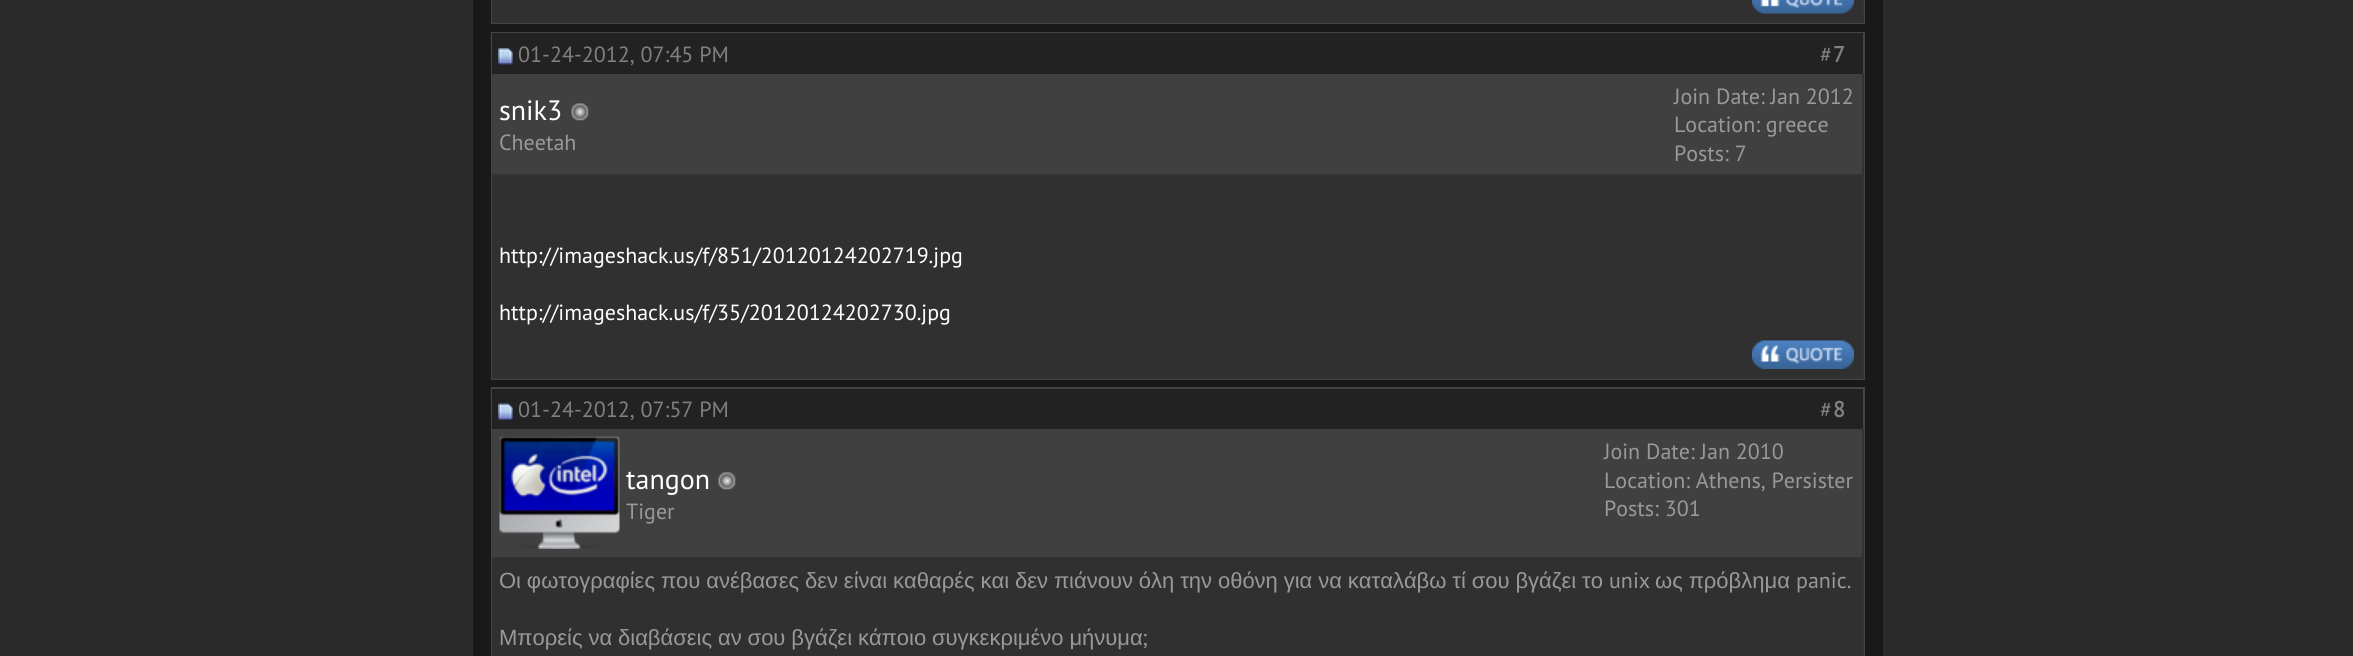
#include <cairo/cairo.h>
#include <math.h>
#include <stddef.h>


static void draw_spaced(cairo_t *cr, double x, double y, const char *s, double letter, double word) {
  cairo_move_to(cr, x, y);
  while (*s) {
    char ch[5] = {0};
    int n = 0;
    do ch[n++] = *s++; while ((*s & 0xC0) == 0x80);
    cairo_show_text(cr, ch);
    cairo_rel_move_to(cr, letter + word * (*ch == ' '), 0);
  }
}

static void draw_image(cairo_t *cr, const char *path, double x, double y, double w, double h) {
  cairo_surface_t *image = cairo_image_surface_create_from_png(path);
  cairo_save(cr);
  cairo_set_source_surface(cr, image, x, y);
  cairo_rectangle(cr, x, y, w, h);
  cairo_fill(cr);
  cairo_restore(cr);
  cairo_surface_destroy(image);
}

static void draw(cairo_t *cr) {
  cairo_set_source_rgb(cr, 43 / 255.0, 43 / 255.0, 43 / 255.0);
  cairo_paint(cr);
  cairo_set_source_rgb(cr, 25 / 255.0, 25 / 255.0, 25 / 255.0);
  cairo_rectangle(cr, 473, 0, 1410, 656);
  cairo_fill(cr);
  cairo_rectangle(cr, 492, -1, 1372, 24);
  cairo_set_source_rgb(cr, 68 / 255.0, 68 / 255.0, 68 / 255.0);
  cairo_stroke(cr);
  cairo_set_source_rgb(cr, 48 / 255.0, 48 / 255.0, 48 / 255.0);
  cairo_rectangle(cr, 492, 0, 1370, 21);
  cairo_fill(cr);
  cairo_set_source_rgb(cr, 51 / 255.0, 51 / 255.0, 51 / 255.0);
  cairo_rectangle(cr, 1862, 0, 2, 23);
  cairo_fill(cr);
  cairo_rectangle(cr, 492, 21, 1371, 2);
  cairo_fill(cr);
  draw_image(cr, "images/1.png", 1752, 0, 102, 14);
  draw_image(cr, "images/2.png", 490, 33, 1, 29);
  cairo_rectangle(cr, 492, 33, 1372, 346);
  cairo_set_source_rgb(cr, 68 / 255.0, 68 / 255.0, 68 / 255.0);
  cairo_stroke(cr);
  cairo_set_source_rgb(cr, 34 / 255.0, 34 / 255.0, 34 / 255.0);
  cairo_rectangle(cr, 492, 33, 1371, 41);
  cairo_fill(cr);
  draw_image(cr, "images/3.png", 498, 48, 15, 17);
  cairo_set_source_rgb(cr, 64 / 255.0, 64 / 255.0, 64 / 255.0);
  cairo_rectangle(cr, 492, 74, 1370, 100);
  cairo_fill(cr);
  cairo_set_source_rgb(cr, 51 / 255.0, 51 / 255.0, 51 / 255.0);
  cairo_rectangle(cr, 1862, 74, 2, 304);
  cairo_fill(cr);
  cairo_rectangle(cr, 492, 174, 1371, 2);
  cairo_fill(cr);
  draw_image(cr, "images/4.png", 571, 103, 18, 18);
  cairo_set_source_rgb(cr, 48 / 255.0, 48 / 255.0, 48 / 255.0);
  cairo_rectangle(cr, 492, 176, 1370, 201);
  cairo_fill(cr);
  cairo_set_source_rgb(cr, 51 / 255.0, 51 / 255.0, 51 / 255.0);
  cairo_rectangle(cr, 492, 377, 1371, 2);
  cairo_fill(cr);
  draw_image(cr, "images/5.png", 1752, 340, 102, 29);
  draw_image(cr, "images/6.png", 490, 388, 1, 29);
  cairo_rectangle(cr, 492, 388, 1372, 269);
  cairo_set_source_rgb(cr, 68 / 255.0, 68 / 255.0, 68 / 255.0);
  cairo_stroke(cr);
  cairo_set_source_rgb(cr, 34 / 255.0, 34 / 255.0, 34 / 255.0);
  cairo_rectangle(cr, 492, 389, 1371, 40);
  cairo_fill(cr);
  draw_image(cr, "images/7.png", 498, 403, 15, 17);
  cairo_set_source_rgb(cr, 64 / 255.0, 64 / 255.0, 64 / 255.0);
  cairo_rectangle(cr, 492, 429, 1370, 128);
  cairo_fill(cr);
  cairo_set_source_rgb(cr, 51 / 255.0, 51 / 255.0, 51 / 255.0);
  cairo_rectangle(cr, 1862, 429, 2, 227);
  cairo_fill(cr);
  cairo_rectangle(cr, 492, 557, 1371, 1);
  cairo_fill(cr);
  draw_image(cr, "images/8.png", 499, 436, 121, 113);
  draw_image(cr, "images/4.png", 718, 472, 18, 18);
  cairo_set_source_rgb(cr, 48 / 255.0, 48 / 255.0, 48 / 255.0);
  cairo_rectangle(cr, 492, 558, 1370, 98);
  cairo_fill(cr);
  cairo_select_font_face(cr, "PT Sans", CAIRO_FONT_SLANT_NORMAL, CAIRO_FONT_WEIGHT_NORMAL);
  cairo_set_font_size(cr, 22);
  cairo_set_source_rgb(cr, 128 / 255.0, 128 / 255.0, 128 / 255.0);
  cairo_move_to(cr, 518, 62);
  cairo_show_text(cr, "01-24-2012, 07:45 PM");
  cairo_move_to(cr, 1820, 62);
  cairo_show_text(cr, "#");
  cairo_select_font_face(cr, "PT Sans", CAIRO_FONT_SLANT_NORMAL, CAIRO_FONT_WEIGHT_BOLD);
  cairo_move_to(cr, 1833, 62);
  cairo_show_text(cr, "7");
  cairo_select_font_face(cr, "PT Sans", CAIRO_FONT_SLANT_NORMAL, CAIRO_FONT_WEIGHT_NORMAL);
  cairo_set_font_size(cr, 28);
  cairo_set_source_rgb(cr, 1, 1, 1);
  cairo_move_to(cr, 499, 120);
  cairo_show_text(cr, "snik3");
  cairo_set_font_size(cr, 22);
  cairo_set_source_rgb(cr, 153 / 255.0, 153 / 255.0, 153 / 255.0);
  cairo_move_to(cr, 499, 150);
  cairo_show_text(cr, "Cheetah");
  cairo_move_to(cr, 1674, 104);
  cairo_show_text(cr, "Join Date: Jan 2012");
  cairo_move_to(cr, 1674, 132);
  cairo_show_text(cr, "Location: greece");
  cairo_move_to(cr, 1674, 161);
  cairo_show_text(cr, "Posts: 7");
  cairo_set_source_rgb(cr, 1, 1, 1);
  cairo_move_to(cr, 499, 263);
  cairo_show_text(cr, "http://imageshack.us/f/851/20120124202719.jpg");
  cairo_move_to(cr, 499, 320);
  cairo_show_text(cr, "http://imageshack.us/f/35/20120124202730.jpg");
  cairo_set_source_rgb(cr, 128 / 255.0, 128 / 255.0, 128 / 255.0);
  cairo_move_to(cr, 518, 417);
  cairo_show_text(cr, "01-24-2012, 07:57 PM");
  cairo_move_to(cr, 1820, 417);
  cairo_show_text(cr, "#");
  cairo_select_font_face(cr, "PT Sans", CAIRO_FONT_SLANT_NORMAL, CAIRO_FONT_WEIGHT_BOLD);
  cairo_move_to(cr, 1833, 417);
  cairo_show_text(cr, "8");
  cairo_select_font_face(cr, "PT Sans", CAIRO_FONT_SLANT_NORMAL, CAIRO_FONT_WEIGHT_NORMAL);
  cairo_set_font_size(cr, 28);
  cairo_set_source_rgb(cr, 1, 1, 1);
  cairo_move_to(cr, 626, 489);
  cairo_show_text(cr, "tangon");
  cairo_set_font_size(cr, 22);
  cairo_set_source_rgb(cr, 153 / 255.0, 153 / 255.0, 153 / 255.0);
  cairo_move_to(cr, 626, 519);
  cairo_show_text(cr, "Tiger");
  cairo_move_to(cr, 1604, 459);
  cairo_show_text(cr, "Join Date: Jan 2010");
  cairo_move_to(cr, 1604, 488);
  cairo_show_text(cr, "Location: Athens, Persister");
  cairo_move_to(cr, 1604, 516);
  cairo_show_text(cr, "Posts: 301");
  cairo_select_font_face(cr, "Liberation Sans", CAIRO_FONT_SLANT_NORMAL, CAIRO_FONT_WEIGHT_NORMAL);
  draw_spaced(cr, 499, 588, "Οι φωτογραφίες που ανέβασες δεν είναι καθαρές και δεν πιάνουν όλη την οθόνη για να καταλάβω τί σου βγάζει το", 0, -0.25);
  cairo_select_font_face(cr, "PT Sans", CAIRO_FONT_SLANT_NORMAL, CAIRO_FONT_WEIGHT_NORMAL);
  cairo_move_to(cr, 1609, 588);
  cairo_show_text(cr, "unix");
  cairo_select_font_face(cr, "Liberation Sans", CAIRO_FONT_SLANT_NORMAL, CAIRO_FONT_WEIGHT_NORMAL);
  draw_spaced(cr, 1655, 588, "ως πρόβλημα", 0, -0.25);
  cairo_select_font_face(cr, "PT Sans", CAIRO_FONT_SLANT_NORMAL, CAIRO_FONT_WEIGHT_NORMAL);
  cairo_move_to(cr, 1796, 588);
  cairo_show_text(cr, "panic.");
  cairo_select_font_face(cr, "Liberation Sans", CAIRO_FONT_SLANT_NORMAL, CAIRO_FONT_WEIGHT_NORMAL);
  draw_spaced(cr, 499, 645, "Μπορείς να διαβάσεις αν σου βγάζει κάποιο συγκεκριμένο μήνυμα", 0, -0.25);
  cairo_select_font_face(cr, "PT Sans", CAIRO_FONT_SLANT_NORMAL, CAIRO_FONT_WEIGHT_NORMAL);
  cairo_move_to(cr, 1142, 645);
  cairo_show_text(cr, ";");
}

int main(void) {
  cairo_surface_t *surface = cairo_image_surface_create(CAIRO_FORMAT_RGB24, 2353, 656);
  cairo_t *cr = cairo_create(surface);
  cairo_font_options_t *options = cairo_font_options_create();
  cairo_font_options_set_hint_metrics(options, CAIRO_HINT_METRICS_OFF);
  cairo_font_options_set_hint_style(options, CAIRO_HINT_STYLE_NONE);
  cairo_set_font_options(cr, options);
  cairo_set_miter_limit(cr, 4);
  draw(cr);
  cairo_surface_write_to_png(surface, "out.png");
  cairo_font_options_destroy(options);
  cairo_destroy(cr);
  cairo_surface_destroy(surface);
  return 0;
}
